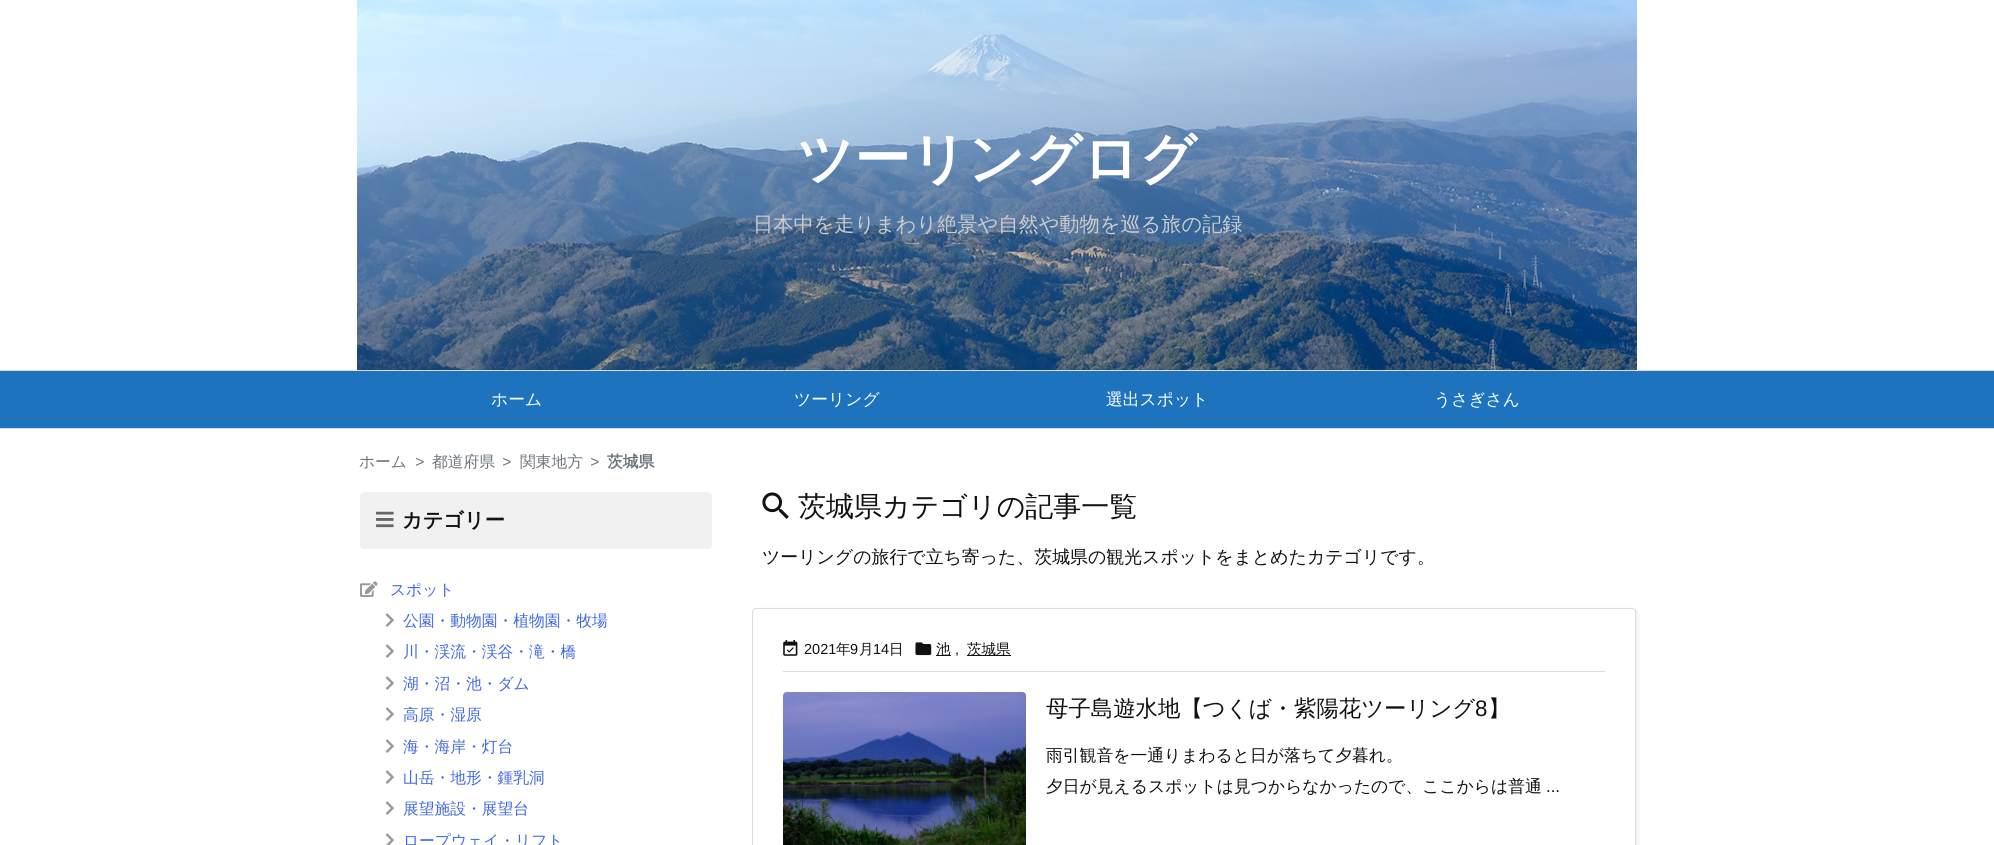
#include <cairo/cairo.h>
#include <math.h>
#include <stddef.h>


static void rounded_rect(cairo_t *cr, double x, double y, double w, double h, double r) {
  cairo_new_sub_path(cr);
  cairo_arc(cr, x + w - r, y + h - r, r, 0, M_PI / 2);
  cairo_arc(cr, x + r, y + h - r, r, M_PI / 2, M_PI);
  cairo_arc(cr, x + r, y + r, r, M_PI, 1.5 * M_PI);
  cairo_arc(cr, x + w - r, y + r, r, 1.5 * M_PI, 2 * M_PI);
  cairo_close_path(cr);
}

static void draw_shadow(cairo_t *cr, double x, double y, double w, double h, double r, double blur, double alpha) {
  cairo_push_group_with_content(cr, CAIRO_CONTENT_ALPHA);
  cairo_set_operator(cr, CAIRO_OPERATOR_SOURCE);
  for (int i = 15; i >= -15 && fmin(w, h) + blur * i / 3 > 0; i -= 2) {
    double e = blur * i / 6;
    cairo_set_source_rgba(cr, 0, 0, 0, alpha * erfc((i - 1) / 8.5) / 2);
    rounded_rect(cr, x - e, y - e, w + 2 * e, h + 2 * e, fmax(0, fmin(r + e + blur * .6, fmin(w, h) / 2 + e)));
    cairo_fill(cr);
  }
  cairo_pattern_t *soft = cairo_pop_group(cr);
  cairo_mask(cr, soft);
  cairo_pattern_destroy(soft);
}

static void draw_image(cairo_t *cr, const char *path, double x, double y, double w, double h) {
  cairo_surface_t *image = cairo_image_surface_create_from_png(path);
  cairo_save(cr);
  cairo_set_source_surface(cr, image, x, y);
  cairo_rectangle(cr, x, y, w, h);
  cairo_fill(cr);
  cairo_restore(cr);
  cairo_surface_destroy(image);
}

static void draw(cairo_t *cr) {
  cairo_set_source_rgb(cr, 1, 1, 1);
  cairo_paint(cr);
  draw_image(cr, "images/1.png", 357, 0, 1280, 370);
  cairo_set_source_rgb(cr, 30 / 255.0, 115 / 255.0, 190 / 255.0);
  cairo_rectangle(cr, 0, 371, 1994, 57);
  cairo_fill(cr);
  cairo_set_source_rgb(cr, 221 / 255.0, 221 / 255.0, 221 / 255.0);
  cairo_rectangle(cr, 0, 370, 1994, 1);
  cairo_fill(cr);
  cairo_rectangle(cr, 0, 428, 1994, 1);
  cairo_fill(cr);
  cairo_set_source_rgb(cr, 241 / 255.0, 241 / 255.0, 241 / 255.0);
  rounded_rect(cr, 360, 492, 352, 57, 4);
  cairo_fill(cr);
  draw_image(cr, "images/2.png", 376, 511, 18, 17);
  draw_image(cr, "images/3.png", 360, 581, 18, 16);
  draw_image(cr, "images/4.png", 385, 613, 9, 14);
  draw_image(cr, "images/4.png", 385, 644, 9, 14);
  draw_image(cr, "images/4.png", 385, 676, 9, 14);
  draw_image(cr, "images/4.png", 385, 707, 9, 14);
  draw_image(cr, "images/4.png", 385, 739, 9, 14);
  draw_image(cr, "images/4.png", 385, 770, 9, 14);
  draw_image(cr, "images/4.png", 385, 801, 9, 14);
  draw_image(cr, "images/5.png", 385, 833, 9, 12);
  draw_image(cr, "images/6.png", 762, 492, 27, 27);
  cairo_set_source_rgb(cr, 128 / 255.0, 128 / 255.0, 128 / 255.0);
  draw_shadow(cr, 753, 609, 886, 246, 5, 1.5, 0.1);
  cairo_set_source_rgb(cr, 1, 1, 1);
  rounded_rect(cr, 752.5, 608.5, 883, 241, 3.5);
  cairo_fill_preserve(cr);
  cairo_set_source_rgb(cr, 221 / 255.0, 221 / 255.0, 221 / 255.0);
  cairo_set_line_width(cr, 1);
  cairo_stroke(cr);
  cairo_rectangle(cr, 783, 671, 822, 1);
  cairo_fill(cr);
  draw_image(cr, "images/7.png", 783, 640, 15, 16);
  draw_image(cr, "images/8.png", 915, 642, 17, 14);
  cairo_set_source_rgb(cr, 17 / 255.0, 17 / 255.0, 17 / 255.0);
  cairo_rectangle(cr, 936, 655, 15, 1);
  cairo_fill(cr);
  cairo_rectangle(cr, 967, 655, 44, 1);
  cairo_fill(cr);
  draw_image(cr, "images/9.png", 783, 692, 243, 153);
  cairo_select_font_face(cr, "WenQuanYi Zen Hei", CAIRO_FONT_SLANT_NORMAL, CAIRO_FONT_WEIGHT_BOLD);
  cairo_set_font_size(cr, 56);
  cairo_set_source_rgb(cr, 1, 1, 1);
  cairo_move_to(cr, 797, 178);
  cairo_show_text(cr, "ツーリングログ");
  cairo_select_font_face(cr, "WenQuanYi Zen Hei Medium", CAIRO_FONT_SLANT_NORMAL, CAIRO_FONT_WEIGHT_NORMAL);
  cairo_set_font_size(cr, 20.2);
  cairo_set_source_rgb(cr, 204 / 255.0, 204 / 255.0, 204 / 255.0);
  cairo_move_to(cr, 753, 231);
  cairo_show_text(cr, "日本中を走りまわり絶景や自然や動物を巡る旅の記録");
  cairo_set_font_size(cr, 16.8);
  cairo_set_source_rgb(cr, 1, 1, 1);
  cairo_move_to(cr, 491, 405);
  cairo_show_text(cr, "ホーム");
  cairo_move_to(cr, 794, 405);
  cairo_show_text(cr, "ツーリング");
  cairo_move_to(cr, 1106, 405);
  cairo_show_text(cr, "選出スポット");
  cairo_move_to(cr, 1434, 405);
  cairo_show_text(cr, "うさぎさん");
  cairo_set_font_size(cr, 15.75);
  cairo_set_source_rgb(cr, 108 / 255.0, 117 / 255.0, 125 / 255.0);
  cairo_move_to(cr, 359, 467);
  cairo_show_text(cr, "ホーム");
  cairo_select_font_face(cr, "Liberation Sans", CAIRO_FONT_SLANT_ITALIC, CAIRO_FONT_WEIGHT_NORMAL);
  cairo_move_to(cr, 415, 467);
  cairo_show_text(cr, ">");
  cairo_select_font_face(cr, "WenQuanYi Zen Hei Medium", CAIRO_FONT_SLANT_NORMAL, CAIRO_FONT_WEIGHT_NORMAL);
  cairo_move_to(cr, 432, 467);
  cairo_show_text(cr, "都道府県");
  cairo_select_font_face(cr, "Liberation Sans", CAIRO_FONT_SLANT_ITALIC, CAIRO_FONT_WEIGHT_NORMAL);
  cairo_move_to(cr, 502, 467);
  cairo_show_text(cr, ">");
  cairo_select_font_face(cr, "WenQuanYi Zen Hei Medium", CAIRO_FONT_SLANT_NORMAL, CAIRO_FONT_WEIGHT_NORMAL);
  cairo_move_to(cr, 520, 467);
  cairo_show_text(cr, "関東地方");
  cairo_select_font_face(cr, "Liberation Sans", CAIRO_FONT_SLANT_ITALIC, CAIRO_FONT_WEIGHT_NORMAL);
  cairo_move_to(cr, 590, 467);
  cairo_show_text(cr, ">");
  cairo_select_font_face(cr, "WenQuanYi Zen Hei", CAIRO_FONT_SLANT_NORMAL, CAIRO_FONT_WEIGHT_BOLD);
  cairo_move_to(cr, 607, 467);
  cairo_show_text(cr, "茨城県");
  cairo_set_font_size(cr, 20.2);
  cairo_set_source_rgb(cr, 17 / 255.0, 17 / 255.0, 17 / 255.0);
  cairo_move_to(cr, 402, 527);
  cairo_show_text(cr, "カテゴリー");
  cairo_select_font_face(cr, "WenQuanYi Zen Hei Medium", CAIRO_FONT_SLANT_NORMAL, CAIRO_FONT_WEIGHT_NORMAL);
  cairo_set_font_size(cr, 15.75);
  cairo_set_source_rgb(cr, 65 / 255.0, 105 / 255.0, 225 / 255.0);
  cairo_move_to(cr, 390, 595);
  cairo_show_text(cr, "スポット");
  cairo_move_to(cr, 403, 626);
  cairo_show_text(cr, "公園・動物園・植物園・牧場");
  cairo_move_to(cr, 403, 657);
  cairo_show_text(cr, "川・渓流・渓谷・滝・橋");
  cairo_move_to(cr, 403, 689);
  cairo_show_text(cr, "湖・沼・池・ダム");
  cairo_move_to(cr, 403, 720);
  cairo_show_text(cr, "高原・湿原");
  cairo_move_to(cr, 403, 752);
  cairo_show_text(cr, "海・海岸・灯台");
  cairo_move_to(cr, 403, 783);
  cairo_show_text(cr, "山岳・地形・鍾乳洞");
  cairo_move_to(cr, 403, 814);
  cairo_show_text(cr, "展望施設・展望台");
  cairo_move_to(cr, 403, 846);
  cairo_show_text(cr, "ロープウェイ・リフト");
  cairo_set_font_size(cr, 28);
  cairo_set_source_rgb(cr, 17 / 255.0, 17 / 255.0, 17 / 255.0);
  cairo_move_to(cr, 798, 516);
  cairo_show_text(cr, "茨城県カテゴリの記事一覧");
  cairo_set_font_size(cr, 17.9);
  cairo_move_to(cr, 762, 563);
  cairo_show_text(cr, "ツーリングの旅行で立ち寄った、茨城県の観光スポットをまとめたカテゴリです。");
  cairo_select_font_face(cr, "Liberation Sans", CAIRO_FONT_SLANT_NORMAL, CAIRO_FONT_WEIGHT_NORMAL);
  cairo_set_font_size(cr, 14.5);
  cairo_move_to(cr, 804, 654);
  cairo_show_text(cr, "2021");
  cairo_select_font_face(cr, "WenQuanYi Zen Hei Medium", CAIRO_FONT_SLANT_NORMAL, CAIRO_FONT_WEIGHT_NORMAL);
  cairo_move_to(cr, 836, 654);
  cairo_show_text(cr, "年");
  cairo_select_font_face(cr, "Liberation Sans", CAIRO_FONT_SLANT_NORMAL, CAIRO_FONT_WEIGHT_NORMAL);
  cairo_move_to(cr, 850, 654);
  cairo_show_text(cr, "9");
  cairo_select_font_face(cr, "WenQuanYi Zen Hei Medium", CAIRO_FONT_SLANT_NORMAL, CAIRO_FONT_WEIGHT_NORMAL);
  cairo_move_to(cr, 859, 654);
  cairo_show_text(cr, "月");
  cairo_select_font_face(cr, "Liberation Sans", CAIRO_FONT_SLANT_NORMAL, CAIRO_FONT_WEIGHT_NORMAL);
  cairo_move_to(cr, 873, 654);
  cairo_show_text(cr, "14");
  cairo_select_font_face(cr, "WenQuanYi Zen Hei Medium", CAIRO_FONT_SLANT_NORMAL, CAIRO_FONT_WEIGHT_NORMAL);
  cairo_move_to(cr, 889, 654);
  cairo_show_text(cr, "日");
  cairo_move_to(cr, 936, 654);
  cairo_show_text(cr, "池");
  cairo_select_font_face(cr, "Liberation Sans", CAIRO_FONT_SLANT_NORMAL, CAIRO_FONT_WEIGHT_NORMAL);
  cairo_move_to(cr, 955, 654);
  cairo_show_text(cr, ",");
  cairo_select_font_face(cr, "WenQuanYi Zen Hei Medium", CAIRO_FONT_SLANT_NORMAL, CAIRO_FONT_WEIGHT_NORMAL);
  cairo_move_to(cr, 967, 654);
  cairo_show_text(cr, "茨城県");
  cairo_set_font_size(cr, 22.4);
  cairo_move_to(cr, 1046, 716);
  cairo_show_text(cr, "母子島遊水地【つくば・紫陽花ツーリング");
  cairo_select_font_face(cr, "Liberation Sans", CAIRO_FONT_SLANT_NORMAL, CAIRO_FONT_WEIGHT_NORMAL);
  cairo_move_to(cr, 1475, 716);
  cairo_show_text(cr, "8");
  cairo_select_font_face(cr, "WenQuanYi Zen Hei Medium", CAIRO_FONT_SLANT_NORMAL, CAIRO_FONT_WEIGHT_NORMAL);
  cairo_move_to(cr, 1488, 716);
  cairo_show_text(cr, "】");
  cairo_set_font_size(cr, 16.8);
  cairo_move_to(cr, 1046, 761);
  cairo_show_text(cr, "雨引観音を一通りまわると日が落ちて夕暮れ。");
  cairo_move_to(cr, 1046, 792);
  cairo_show_text(cr, "夕日が見えるスポットは見つからなかったので、ここからは普通");
  cairo_select_font_face(cr, "Liberation Sans", CAIRO_FONT_SLANT_NORMAL, CAIRO_FONT_WEIGHT_NORMAL);
  cairo_move_to(cr, 1546, 792);
  cairo_show_text(cr, "...");
}

int main(void) {
  cairo_surface_t *surface = cairo_image_surface_create(CAIRO_FORMAT_RGB24, 1994, 845);
  cairo_t *cr = cairo_create(surface);
  cairo_font_options_t *options = cairo_font_options_create();
  cairo_font_options_set_hint_metrics(options, CAIRO_HINT_METRICS_OFF);
  cairo_font_options_set_hint_style(options, CAIRO_HINT_STYLE_NONE);
  cairo_set_font_options(cr, options);
  cairo_set_miter_limit(cr, 4);
  draw(cr);
  cairo_surface_write_to_png(surface, "out.png");
  cairo_font_options_destroy(options);
  cairo_destroy(cr);
  cairo_surface_destroy(surface);
  return 0;
}
